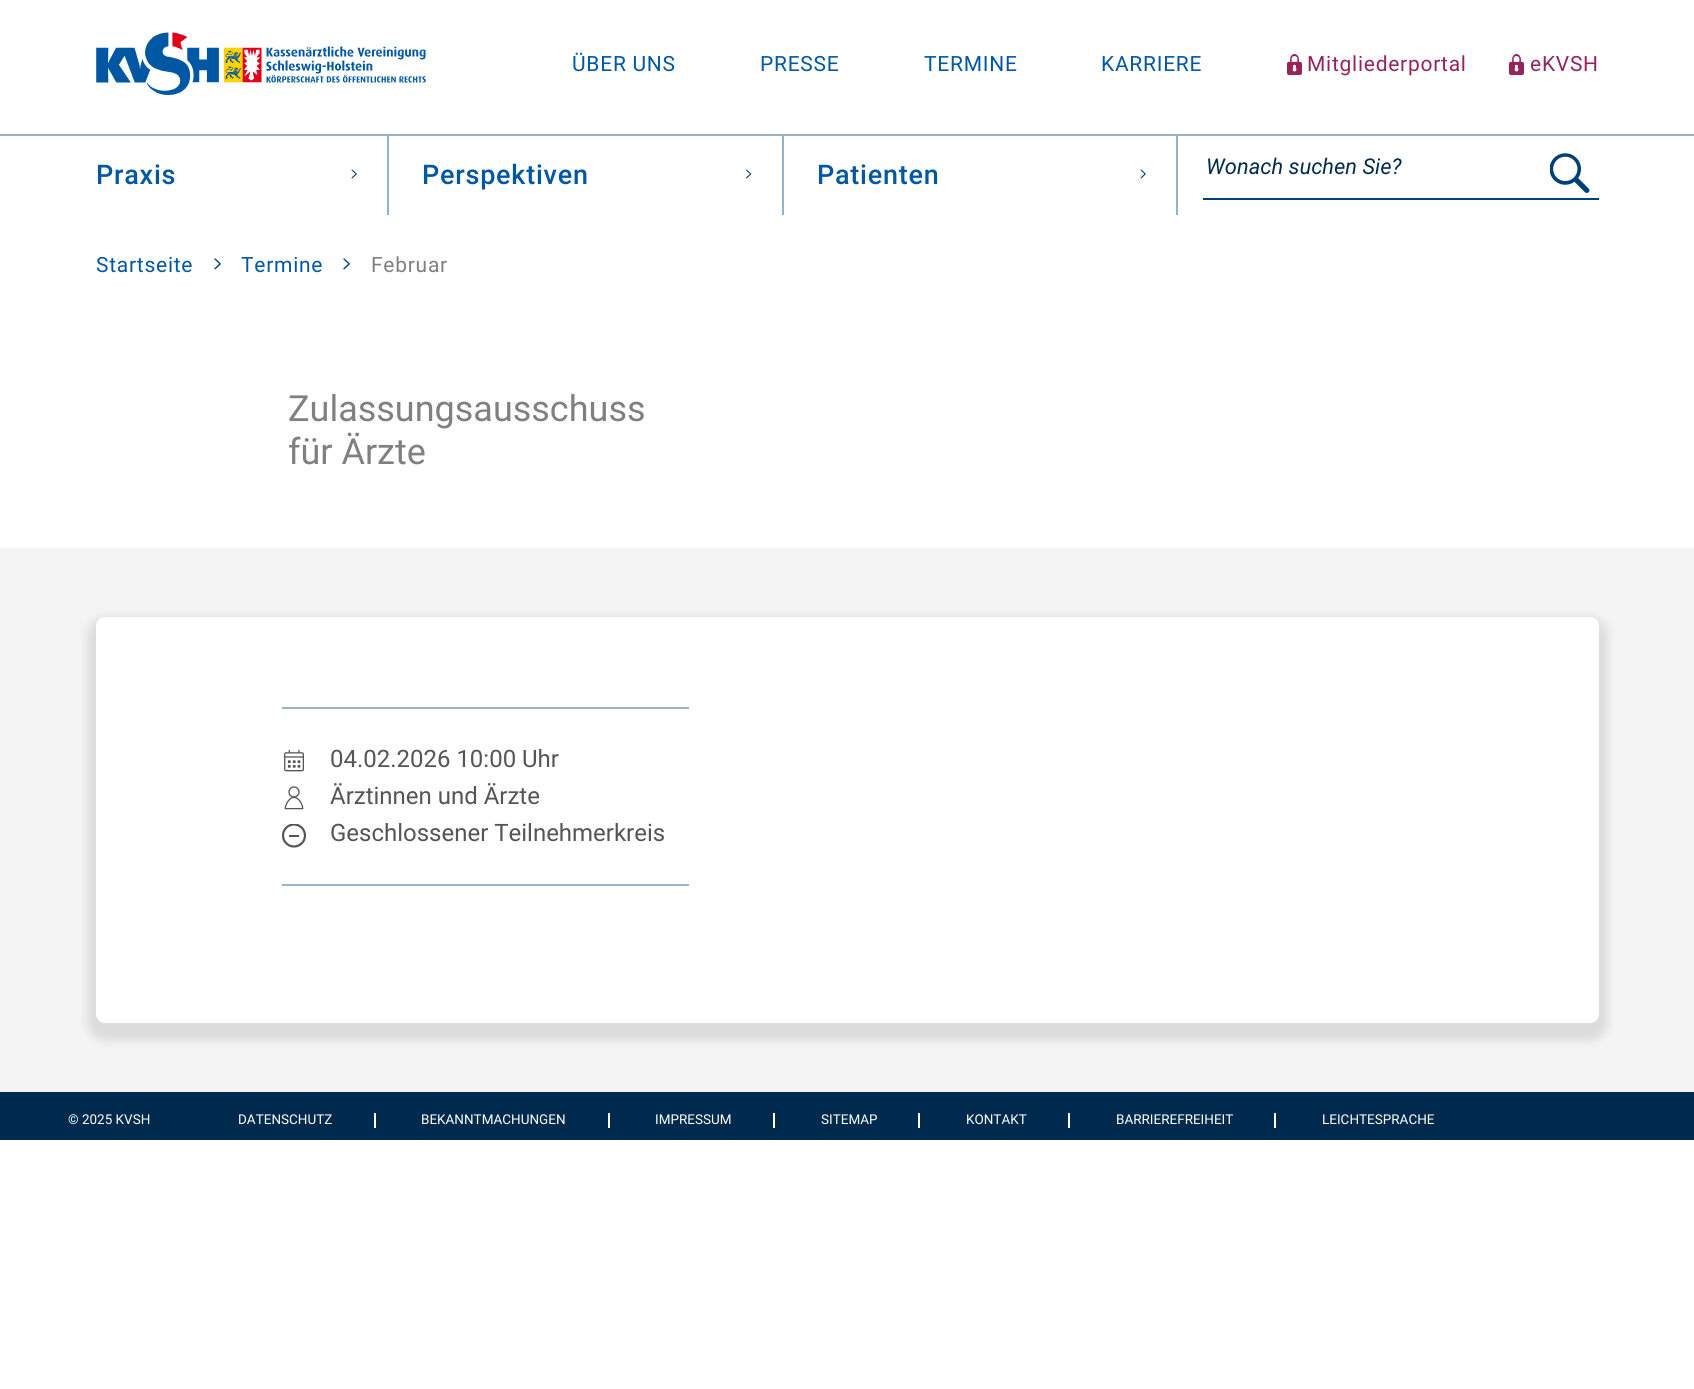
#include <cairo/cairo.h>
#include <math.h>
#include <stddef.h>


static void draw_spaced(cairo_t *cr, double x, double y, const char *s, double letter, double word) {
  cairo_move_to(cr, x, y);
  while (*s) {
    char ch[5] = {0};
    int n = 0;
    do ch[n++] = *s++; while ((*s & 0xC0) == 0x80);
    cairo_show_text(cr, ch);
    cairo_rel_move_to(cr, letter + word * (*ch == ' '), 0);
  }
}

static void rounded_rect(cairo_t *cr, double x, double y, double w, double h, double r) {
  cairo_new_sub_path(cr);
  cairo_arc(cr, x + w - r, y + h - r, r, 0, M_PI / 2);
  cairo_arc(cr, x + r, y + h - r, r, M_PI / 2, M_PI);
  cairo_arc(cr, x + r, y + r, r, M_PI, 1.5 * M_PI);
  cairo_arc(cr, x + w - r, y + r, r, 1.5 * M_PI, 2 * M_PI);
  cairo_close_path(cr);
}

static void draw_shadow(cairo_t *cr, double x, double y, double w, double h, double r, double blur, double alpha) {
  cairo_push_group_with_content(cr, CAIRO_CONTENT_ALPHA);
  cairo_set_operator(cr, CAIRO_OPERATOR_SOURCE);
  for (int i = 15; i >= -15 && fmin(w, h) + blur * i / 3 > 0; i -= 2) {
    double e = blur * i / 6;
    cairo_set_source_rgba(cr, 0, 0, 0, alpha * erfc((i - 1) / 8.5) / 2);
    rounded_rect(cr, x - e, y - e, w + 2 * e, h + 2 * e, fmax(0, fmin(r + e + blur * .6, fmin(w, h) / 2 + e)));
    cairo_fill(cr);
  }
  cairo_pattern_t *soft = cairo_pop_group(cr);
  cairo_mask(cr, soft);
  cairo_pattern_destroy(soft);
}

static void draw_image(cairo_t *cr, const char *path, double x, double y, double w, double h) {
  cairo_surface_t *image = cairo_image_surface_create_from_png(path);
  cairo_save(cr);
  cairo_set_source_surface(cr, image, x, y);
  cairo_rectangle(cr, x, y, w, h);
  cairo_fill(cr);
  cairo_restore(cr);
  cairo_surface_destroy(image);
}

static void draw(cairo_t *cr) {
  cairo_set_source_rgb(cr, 1, 1, 1);
  cairo_paint(cr);
  cairo_set_source_rgb(cr, 147 / 255.0, 179 / 255.0, 200 / 255.0);
  cairo_rectangle(cr, 0, 134, 1694, 2);
  cairo_fill(cr);
  draw_image(cr, "images/1.png", 96, 32, 330, 63);
  draw_image(cr, "images/2.png", 1287, 54, 15, 21);
  draw_image(cr, "images/2.png", 1509, 54, 15, 21);
  cairo_set_source_rgb(cr, 146 / 255.0, 178 / 255.0, 202 / 255.0);
  cairo_rectangle(cr, 387, 134, 2, 81);
  cairo_fill(cr);
  draw_image(cr, "images/3.png", 351, 169, 6, 10);
  cairo_rectangle(cr, 782, 134, 2, 81);
  cairo_fill(cr);
  draw_image(cr, "images/4.png", 746, 169, 6, 10);
  cairo_rectangle(cr, 1176, 134, 2, 81);
  cairo_fill(cr);
  draw_image(cr, "images/3.png", 1140, 169, 6, 10);
  cairo_set_source_rgb(cr, 0, 64 / 255.0, 119 / 255.0);
  cairo_rectangle(cr, 1203, 198, 396, 2);
  cairo_fill(cr);
  draw_image(cr, "images/5.png", 1550, 153, 40, 40);
  draw_image(cr, "images/6.png", 214, 258, 7, 12);
  draw_image(cr, "images/6.png", 343, 258, 7, 12);
  cairo_set_source_rgb(cr, 244 / 255.0, 244 / 255.0, 244 / 255.0);
  cairo_rectangle(cr, 0, 548, 1694, 544);
  cairo_fill(cr);
  cairo_set_source_rgb(cr, 0, 0, 0);
  draw_shadow(cr, 87, 617, 1521, 424, 18, 4.5, 0.1);
  cairo_set_source_rgb(cr, 1, 1, 1);
  rounded_rect(cr, 96, 617, 1503, 406, 9);
  cairo_fill(cr);
  cairo_set_source_rgb(cr, 153 / 255.0, 179 / 255.0, 201 / 255.0);
  cairo_rectangle(cr, 282, 707, 407, 2);
  cairo_fill(cr);
  cairo_rectangle(cr, 282, 884, 407, 2);
  cairo_fill(cr);
  draw_image(cr, "images/7.png", 284, 749, 20, 23);
  draw_image(cr, "images/8.png", 284, 786, 20, 24);
  cairo_save(cr);
  cairo_rectangle(cr, 282, 824, 24, 24);
  cairo_clip(cr);
  cairo_arc(cr, 294, 835.5, 11, 0, 2 * M_PI);
  cairo_set_source_rgb(cr, 85 / 255.0, 85 / 255.0, 85 / 255.0);
  cairo_set_line_width(cr, 2.2);
  cairo_stroke(cr);
  cairo_restore(cr);
  cairo_set_source_rgb(cr, 85 / 255.0, 85 / 255.0, 85 / 255.0);
  cairo_rectangle(cr, 289, 835, 10, 2);
  cairo_fill(cr);
  cairo_set_source_rgb(cr, 0, 42 / 255.0, 77 / 255.0);
  cairo_rectangle(cr, 0, 1092, 1694, 48);
  cairo_fill(cr);
  cairo_set_source_rgb(cr, 1, 1, 1);
  cairo_rectangle(cr, 374, 1113, 2, 15);
  cairo_fill(cr);
  cairo_rectangle(cr, 608, 1113, 2, 15);
  cairo_fill(cr);
  cairo_rectangle(cr, 773, 1113, 2, 15);
  cairo_fill(cr);
  cairo_rectangle(cr, 918, 1113, 2, 15);
  cairo_fill(cr);
  cairo_rectangle(cr, 1068, 1113, 2, 15);
  cairo_fill(cr);
  cairo_rectangle(cr, 1274, 1113, 2, 15);
  cairo_fill(cr);
  cairo_select_font_face(cr, "Roboto", CAIRO_FONT_SLANT_NORMAL, CAIRO_FONT_WEIGHT_NORMAL);
  cairo_set_font_size(cr, 21);
  cairo_set_source_rgb(cr, 0, 87 / 255.0, 163 / 255.0);
  draw_spaced(cr, 572, 71, "ÜBER UNS", 0.75, 0);
  draw_spaced(cr, 760, 71, "PRESSE", 0.75, 0);
  draw_spaced(cr, 924, 71, "TERMINE", 0.75, 0);
  draw_spaced(cr, 1101, 71, "KARRIERE", 0.75, 0);
  cairo_set_source_rgb(cr, 149 / 255.0, 37 / 255.0, 89 / 255.0);
  draw_spaced(cr, 1307, 71, "Mitgliederportal", 0.75, 0);
  draw_spaced(cr, 1530, 71, "eKVSH", 0.75, 0);
  cairo_select_font_face(cr, "Roboto Medium", CAIRO_FONT_SLANT_NORMAL, CAIRO_FONT_WEIGHT_NORMAL);
  cairo_set_font_size(cr, 27);
  cairo_set_source_rgb(cr, 0, 87 / 255.0, 163 / 255.0);
  draw_spaced(cr, 96, 184, "Praxis", 0.75, 0);
  draw_spaced(cr, 422, 184, "Perspektiven", 0.75, 0);
  draw_spaced(cr, 817, 184, "Patienten", 0.75, 0);
  cairo_select_font_face(cr, "Roboto", CAIRO_FONT_SLANT_ITALIC, CAIRO_FONT_WEIGHT_NORMAL);
  cairo_set_font_size(cr, 21.75);
  cairo_set_source_rgb(cr, 0, 42 / 255.0, 77 / 255.0);
  cairo_move_to(cr, 1206, 174);
  cairo_show_text(cr, "Wonach suchen Sie?");
  cairo_select_font_face(cr, "Roboto", CAIRO_FONT_SLANT_NORMAL, CAIRO_FONT_WEIGHT_NORMAL);
  cairo_set_font_size(cr, 21);
  cairo_set_source_rgb(cr, 0, 87 / 255.0, 163 / 255.0);
  draw_spaced(cr, 96, 272, "Startseite", 0.75, 0);
  draw_spaced(cr, 241, 272, "Termine", 0.75, 0);
  cairo_set_source_rgb(cr, 128 / 255.0, 128 / 255.0, 128 / 255.0);
  draw_spaced(cr, 371, 272, "Februar", 0.75, 0);
  cairo_set_font_size(cr, 36);
  cairo_move_to(cr, 288, 421);
  cairo_show_text(cr, "Zulassungsausschuss");
  cairo_move_to(cr, 288, 464);
  cairo_show_text(cr, "für Ärzte");
  cairo_set_font_size(cr, 24);
  cairo_set_source_rgb(cr, 85 / 255.0, 85 / 255.0, 85 / 255.0);
  cairo_move_to(cr, 330, 767);
  cairo_show_text(cr, "04.02.2026 10:00 Uhr");
  cairo_move_to(cr, 330, 804);
  cairo_show_text(cr, "Ärztinnen und Ärzte");
  cairo_move_to(cr, 330, 841);
  cairo_show_text(cr, "Geschlossener Teilnehmerkreis");
  cairo_set_font_size(cr, 13.5);
  cairo_set_source_rgb(cr, 1, 1, 1);
  cairo_move_to(cr, 68, 1124);
  cairo_show_text(cr, "© 2025 KVSH");
  cairo_move_to(cr, 238, 1124);
  cairo_show_text(cr, "DATENSCHUTZ");
  cairo_move_to(cr, 421, 1124);
  cairo_show_text(cr, "BEKANNTMACHUNGEN");
  cairo_move_to(cr, 655, 1124);
  cairo_show_text(cr, "IMPRESSUM");
  cairo_move_to(cr, 821, 1124);
  cairo_show_text(cr, "SITEMAP");
  cairo_move_to(cr, 966, 1124);
  cairo_show_text(cr, "KONTAKT");
  cairo_move_to(cr, 1116, 1124);
  cairo_show_text(cr, "BARRIEREFREIHEIT");
  cairo_move_to(cr, 1322, 1124);
  cairo_show_text(cr, "LEICHTESPRACHE");
}

int main(void) {
  cairo_surface_t *surface = cairo_image_surface_create(CAIRO_FORMAT_RGB24, 1694, 1389);
  cairo_t *cr = cairo_create(surface);
  cairo_font_options_t *options = cairo_font_options_create();
  cairo_font_options_set_hint_metrics(options, CAIRO_HINT_METRICS_OFF);
  cairo_font_options_set_hint_style(options, CAIRO_HINT_STYLE_NONE);
  cairo_set_font_options(cr, options);
  cairo_set_miter_limit(cr, 4);
  draw(cr);
  cairo_surface_write_to_png(surface, "out.png");
  cairo_font_options_destroy(options);
  cairo_destroy(cr);
  cairo_surface_destroy(surface);
  return 0;
}
